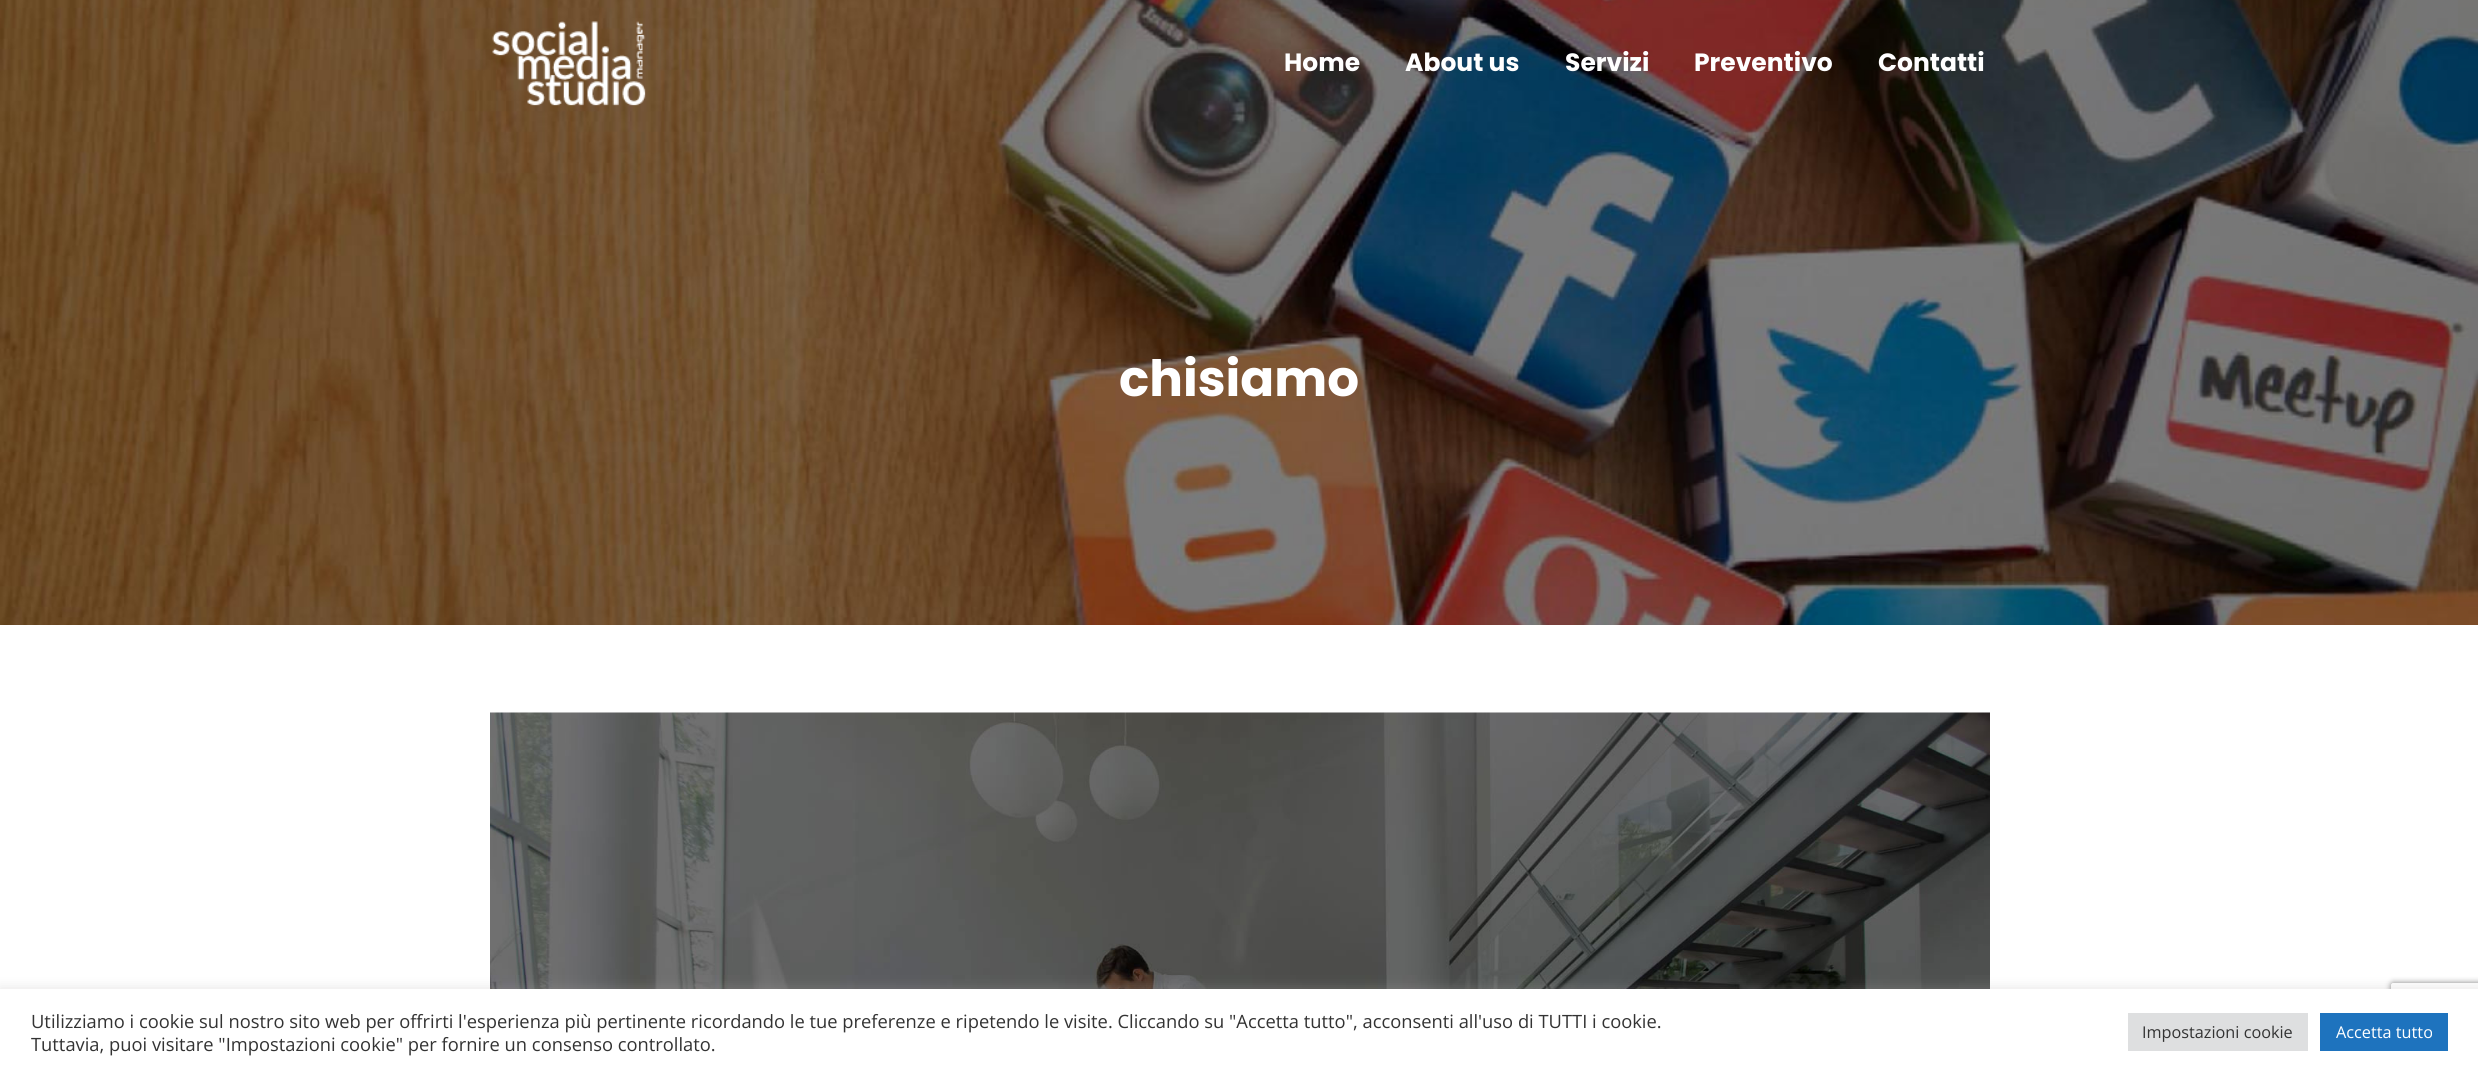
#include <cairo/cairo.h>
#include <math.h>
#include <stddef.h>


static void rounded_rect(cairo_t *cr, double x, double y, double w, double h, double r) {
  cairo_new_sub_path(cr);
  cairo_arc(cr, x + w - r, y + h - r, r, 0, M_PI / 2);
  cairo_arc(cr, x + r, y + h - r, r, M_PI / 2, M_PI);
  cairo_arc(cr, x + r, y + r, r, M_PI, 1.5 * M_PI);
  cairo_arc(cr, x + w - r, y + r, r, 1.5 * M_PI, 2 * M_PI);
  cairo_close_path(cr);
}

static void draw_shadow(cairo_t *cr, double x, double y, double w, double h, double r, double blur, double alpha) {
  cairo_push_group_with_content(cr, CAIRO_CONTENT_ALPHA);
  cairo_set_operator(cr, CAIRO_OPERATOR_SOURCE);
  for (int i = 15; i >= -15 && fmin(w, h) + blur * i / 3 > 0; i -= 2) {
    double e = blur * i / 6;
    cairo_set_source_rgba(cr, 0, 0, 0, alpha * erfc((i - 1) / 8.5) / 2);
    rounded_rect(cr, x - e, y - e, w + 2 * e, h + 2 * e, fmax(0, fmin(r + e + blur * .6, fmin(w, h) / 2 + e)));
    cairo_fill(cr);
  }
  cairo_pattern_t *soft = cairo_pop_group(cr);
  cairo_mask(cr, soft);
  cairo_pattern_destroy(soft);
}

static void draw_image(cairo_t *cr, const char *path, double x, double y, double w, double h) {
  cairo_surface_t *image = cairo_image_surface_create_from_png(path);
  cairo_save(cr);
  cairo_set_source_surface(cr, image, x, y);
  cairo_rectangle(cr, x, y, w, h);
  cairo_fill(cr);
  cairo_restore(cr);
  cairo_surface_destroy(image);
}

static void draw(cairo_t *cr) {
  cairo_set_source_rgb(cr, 1, 1, 1);
  cairo_paint(cr);
  draw_image(cr, "images/2.png", 0, 0, 2478, 625);
  draw_image(cr, "images/1.png", 492, 21, 154, 85);
  draw_image(cr, "images/3.png", 490, 712, 1500, 277);
  cairo_save(cr);
  cairo_set_fill_rule(cr, CAIRO_FILL_RULE_EVEN_ODD);
  cairo_new_path(cr);
  cairo_move_to(cr, 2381, 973);
  cairo_line_to(cr, 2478, 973);
  cairo_line_to(cr, 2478, 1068);
  cairo_line_to(cr, 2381, 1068);
  cairo_close_path(cr);
  cairo_move_to(cr, 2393.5, 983);
  cairo_line_to(cr, 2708.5, 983);
  cairo_curve_to(cr, 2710, 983, 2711, 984, 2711, 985.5);
  cairo_line_to(cr, 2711, 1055.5);
  cairo_curve_to(cr, 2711, 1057, 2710, 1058, 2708.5, 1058);
  cairo_line_to(cr, 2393.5, 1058);
  cairo_curve_to(cr, 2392, 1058, 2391, 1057, 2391, 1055.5);
  cairo_line_to(cr, 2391, 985.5);
  cairo_curve_to(cr, 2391, 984, 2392, 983, 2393.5, 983);
  cairo_close_path(cr);
  cairo_clip(cr);
  cairo_set_source_rgb(cr, 128 / 255.0, 128 / 255.0, 128 / 255.0);
  draw_shadow(cr, 2391, 983, 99, 75, 2.5, 3, 1);
  cairo_restore(cr);
  cairo_set_source_rgb(cr, 172 / 255.0, 171 / 255.0, 171 / 255.0);
  draw_shadow(cr, 0, 988, 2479, 86, 0, 6, 0.3);
  cairo_set_source_rgb(cr, 1, 1, 1);
  cairo_rectangle(cr, 0, 989, 2478, 86);
  cairo_fill(cr);
  cairo_set_source_rgb(cr, 222 / 255.0, 223 / 255.0, 224 / 255.0);
  cairo_rectangle(cr, 2128, 1013, 180, 38);
  cairo_fill(cr);
  cairo_set_source_rgb(cr, 30 / 255.0, 115 / 255.0, 190 / 255.0);
  cairo_rectangle(cr, 2320, 1013, 128, 38);
  cairo_fill(cr);
  cairo_select_font_face(cr, "Poppins", CAIRO_FONT_SLANT_NORMAL, CAIRO_FONT_WEIGHT_BOLD);
  cairo_set_font_size(cr, 25);
  cairo_set_source_rgb(cr, 1, 1, 1);
  cairo_move_to(cr, 1284, 71);
  cairo_show_text(cr, "Home");
  cairo_move_to(cr, 1405, 71);
  cairo_show_text(cr, "About us");
  cairo_move_to(cr, 1565, 71);
  cairo_show_text(cr, "Servizi");
  cairo_move_to(cr, 1694, 71);
  cairo_show_text(cr, "Preventivo");
  cairo_move_to(cr, 1878, 71);
  cairo_show_text(cr, "Contatti");
  cairo_set_font_size(cr, 50);
  cairo_move_to(cr, 1119, 396);
  cairo_show_text(cr, "chisiamo");
  cairo_select_font_face(cr, "Open Sans", CAIRO_FONT_SLANT_NORMAL, CAIRO_FONT_WEIGHT_NORMAL);
  cairo_set_font_size(cr, 18.33);
  cairo_set_source_rgb(cr, 51 / 255.0, 51 / 255.0, 51 / 255.0);
  cairo_move_to(cr, 31, 1028);
  cairo_show_text(cr, "Utilizziamo i cookie sul nostro sito web per offrirti l'esperienza più pertinente ricordando le tue preferenze e ripetendo le visite. Cliccando su \"Accetta tutto\", acconsenti all'uso di TUTTI i cookie.");
  cairo_move_to(cr, 31, 1051);
  cairo_show_text(cr, "Tuttavia, puoi visitare \"Impostazioni cookie\" per fornire un consenso controllato.");
  cairo_set_font_size(cr, 16.25);
  cairo_move_to(cr, 2142, 1038);
  cairo_show_text(cr, "Impostazioni cookie");
  cairo_set_source_rgb(cr, 1, 1, 1);
  cairo_move_to(cr, 2336, 1038);
  cairo_show_text(cr, "Accetta tutto");
}

int main(void) {
  cairo_surface_t *surface = cairo_image_surface_create(CAIRO_FORMAT_RGB24, 2478, 1075);
  cairo_t *cr = cairo_create(surface);
  cairo_font_options_t *options = cairo_font_options_create();
  cairo_font_options_set_hint_metrics(options, CAIRO_HINT_METRICS_OFF);
  cairo_font_options_set_hint_style(options, CAIRO_HINT_STYLE_NONE);
  cairo_set_font_options(cr, options);
  cairo_set_miter_limit(cr, 4);
  draw(cr);
  cairo_surface_write_to_png(surface, "out.png");
  cairo_font_options_destroy(options);
  cairo_destroy(cr);
  cairo_surface_destroy(surface);
  return 0;
}
